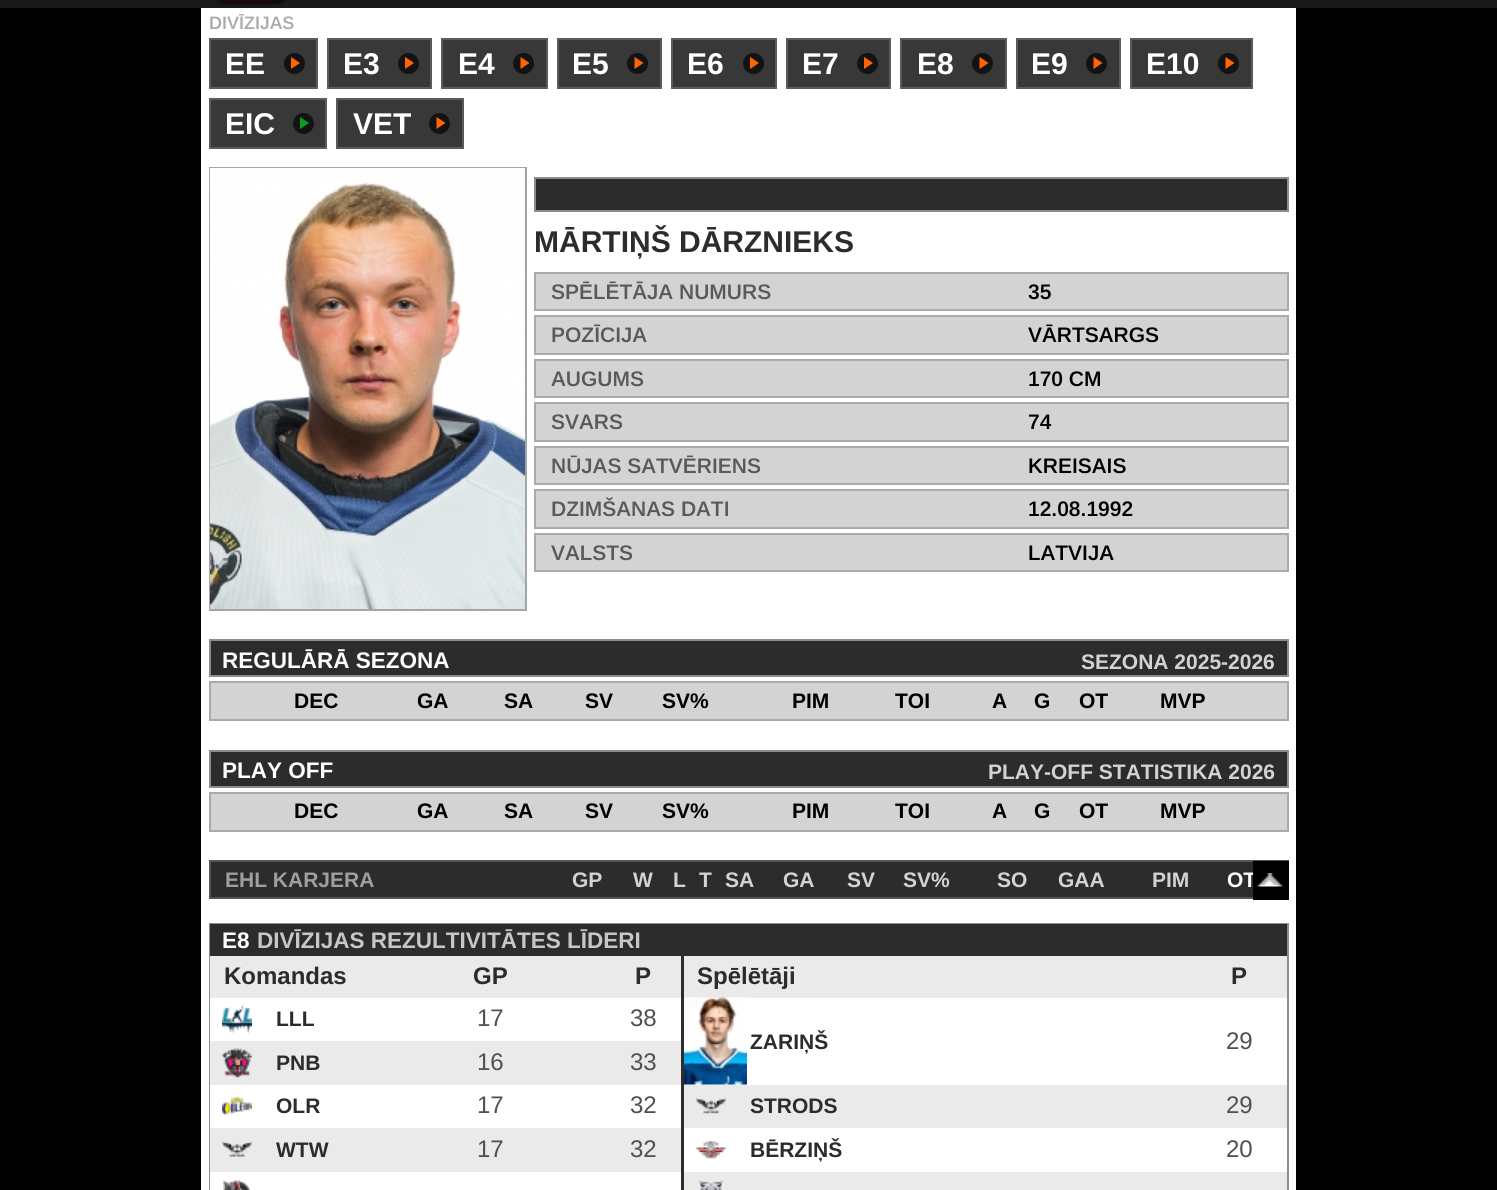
#include <cairo/cairo.h>
#include <math.h>
#include <stddef.h>


static void draw_image(cairo_t *cr, const char *path, double x, double y, double w, double h) {
  cairo_surface_t *image = cairo_image_surface_create_from_png(path);
  cairo_save(cr);
  cairo_set_source_surface(cr, image, x, y);
  cairo_rectangle(cr, x, y, w, h);
  cairo_fill(cr);
  cairo_restore(cr);
  cairo_surface_destroy(image);
}

static void draw(cairo_t *cr) {
  cairo_set_source_rgb(cr, 0, 0, 0);
  cairo_paint(cr);
  cairo_set_source_rgb(cr, 25 / 255.0, 25 / 255.0, 25 / 255.0);
  cairo_rectangle(cr, 0, 0, 1497, 8);
  cairo_fill(cr);
  draw_image(cr, "images/1.png", 217, 0, 69, 5);
  cairo_set_source_rgb(cr, 1, 1, 1);
  cairo_rectangle(cr, 201, 8, 1095, 150);
  cairo_fill(cr);
  cairo_set_source_rgb(cr, 56 / 255.0, 56 / 255.0, 56 / 255.0);
  cairo_rectangle(cr, 210, 39, 107, 49);
  cairo_fill_preserve(cr);
  cairo_set_source_rgb(cr, 91 / 255.0, 91 / 255.0, 90 / 255.0);
  cairo_stroke(cr);
  cairo_set_source_rgb(cr, 19 / 255.0, 19 / 255.0, 19 / 255.0);
  cairo_arc(cr, 294.5, 63.5, 10.5, 0, 2 * M_PI);
  cairo_fill(cr);
  cairo_set_source_rgb(cr, 1, 102 / 255.0, 0);
  cairo_new_path(cr);
  cairo_move_to(cr, 291, 69);
  cairo_line_to(cr, 291, 57);
  cairo_line_to(cr, 300, 63);
  cairo_close_path(cr);
  cairo_fill(cr);
  cairo_set_source_rgb(cr, 56 / 255.0, 56 / 255.0, 56 / 255.0);
  cairo_rectangle(cr, 328, 39, 103, 49);
  cairo_fill_preserve(cr);
  cairo_set_source_rgb(cr, 91 / 255.0, 91 / 255.0, 90 / 255.0);
  cairo_stroke(cr);
  cairo_set_source_rgb(cr, 19 / 255.0, 19 / 255.0, 19 / 255.0);
  cairo_arc(cr, 408.5, 63.5, 10.5, 0, 2 * M_PI);
  cairo_fill(cr);
  cairo_set_source_rgb(cr, 1, 102 / 255.0, 0);
  cairo_new_path(cr);
  cairo_move_to(cr, 405, 69);
  cairo_line_to(cr, 405, 57);
  cairo_line_to(cr, 414, 63);
  cairo_close_path(cr);
  cairo_fill(cr);
  cairo_set_source_rgb(cr, 56 / 255.0, 56 / 255.0, 56 / 255.0);
  cairo_rectangle(cr, 442, 39, 105, 49);
  cairo_fill_preserve(cr);
  cairo_set_source_rgb(cr, 91 / 255.0, 91 / 255.0, 90 / 255.0);
  cairo_stroke(cr);
  cairo_set_source_rgb(cr, 19 / 255.0, 19 / 255.0, 19 / 255.0);
  cairo_arc(cr, 523.5, 63.5, 10.5, 0, 2 * M_PI);
  cairo_fill(cr);
  cairo_set_source_rgb(cr, 1, 102 / 255.0, 0);
  cairo_new_path(cr);
  cairo_move_to(cr, 520.5, 69);
  cairo_line_to(cr, 520.5, 57);
  cairo_line_to(cr, 529.5, 63);
  cairo_close_path(cr);
  cairo_fill(cr);
  cairo_set_source_rgb(cr, 56 / 255.0, 56 / 255.0, 56 / 255.0);
  cairo_rectangle(cr, 558, 39, 103, 49);
  cairo_fill_preserve(cr);
  cairo_set_source_rgb(cr, 91 / 255.0, 91 / 255.0, 90 / 255.0);
  cairo_stroke(cr);
  cairo_set_source_rgb(cr, 19 / 255.0, 19 / 255.0, 19 / 255.0);
  cairo_arc(cr, 637.5, 63.5, 10.5, 0, 2 * M_PI);
  cairo_fill(cr);
  cairo_set_source_rgb(cr, 1, 102 / 255.0, 0);
  cairo_new_path(cr);
  cairo_move_to(cr, 634.5, 69);
  cairo_line_to(cr, 634.5, 57);
  cairo_line_to(cr, 643.5, 63);
  cairo_close_path(cr);
  cairo_fill(cr);
  cairo_set_source_rgb(cr, 56 / 255.0, 56 / 255.0, 56 / 255.0);
  cairo_rectangle(cr, 672, 39, 104, 49);
  cairo_fill_preserve(cr);
  cairo_set_source_rgb(cr, 91 / 255.0, 91 / 255.0, 90 / 255.0);
  cairo_stroke(cr);
  cairo_set_source_rgb(cr, 19 / 255.0, 19 / 255.0, 19 / 255.0);
  cairo_arc(cr, 753.5, 63.5, 10.5, 0, 2 * M_PI);
  cairo_fill(cr);
  cairo_set_source_rgb(cr, 1, 102 / 255.0, 0);
  cairo_new_path(cr);
  cairo_move_to(cr, 750, 69);
  cairo_line_to(cr, 750, 57);
  cairo_line_to(cr, 759, 63);
  cairo_close_path(cr);
  cairo_fill(cr);
  cairo_set_source_rgb(cr, 56 / 255.0, 56 / 255.0, 56 / 255.0);
  cairo_rectangle(cr, 787, 39, 103, 49);
  cairo_fill_preserve(cr);
  cairo_set_source_rgb(cr, 91 / 255.0, 91 / 255.0, 90 / 255.0);
  cairo_stroke(cr);
  cairo_set_source_rgb(cr, 19 / 255.0, 19 / 255.0, 19 / 255.0);
  cairo_arc(cr, 867.5, 63.5, 10.5, 0, 2 * M_PI);
  cairo_fill(cr);
  cairo_set_source_rgb(cr, 1, 102 / 255.0, 0);
  cairo_new_path(cr);
  cairo_move_to(cr, 864, 69);
  cairo_line_to(cr, 864, 57);
  cairo_line_to(cr, 873, 63);
  cairo_close_path(cr);
  cairo_fill(cr);
  cairo_set_source_rgb(cr, 56 / 255.0, 56 / 255.0, 56 / 255.0);
  cairo_rectangle(cr, 901, 39, 105, 49);
  cairo_fill_preserve(cr);
  cairo_set_source_rgb(cr, 91 / 255.0, 91 / 255.0, 90 / 255.0);
  cairo_stroke(cr);
  cairo_set_source_rgb(cr, 19 / 255.0, 19 / 255.0, 19 / 255.0);
  cairo_arc(cr, 982.5, 63.5, 10.5, 0, 2 * M_PI);
  cairo_fill(cr);
  cairo_set_source_rgb(cr, 1, 102 / 255.0, 0);
  cairo_new_path(cr);
  cairo_move_to(cr, 979.5, 69);
  cairo_line_to(cr, 979.5, 57);
  cairo_line_to(cr, 988.5, 63);
  cairo_close_path(cr);
  cairo_fill(cr);
  cairo_set_source_rgb(cr, 56 / 255.0, 56 / 255.0, 56 / 255.0);
  cairo_rectangle(cr, 1017, 39, 103, 49);
  cairo_fill_preserve(cr);
  cairo_set_source_rgb(cr, 91 / 255.0, 91 / 255.0, 90 / 255.0);
  cairo_stroke(cr);
  cairo_set_source_rgb(cr, 19 / 255.0, 19 / 255.0, 19 / 255.0);
  cairo_arc(cr, 1096.5, 63.5, 10.5, 0, 2 * M_PI);
  cairo_fill(cr);
  cairo_set_source_rgb(cr, 1, 102 / 255.0, 0);
  cairo_new_path(cr);
  cairo_move_to(cr, 1093.5, 69);
  cairo_line_to(cr, 1093.5, 57);
  cairo_line_to(cr, 1102.5, 63);
  cairo_close_path(cr);
  cairo_fill(cr);
  cairo_set_source_rgb(cr, 56 / 255.0, 56 / 255.0, 56 / 255.0);
  cairo_rectangle(cr, 1131, 39, 121, 49);
  cairo_fill_preserve(cr);
  cairo_set_source_rgb(cr, 91 / 255.0, 91 / 255.0, 90 / 255.0);
  cairo_stroke(cr);
  cairo_set_source_rgb(cr, 19 / 255.0, 19 / 255.0, 19 / 255.0);
  cairo_arc(cr, 1228.5, 63.5, 10.5, 0, 2 * M_PI);
  cairo_fill(cr);
  cairo_set_source_rgb(cr, 1, 102 / 255.0, 0);
  cairo_new_path(cr);
  cairo_move_to(cr, 1225.5, 69);
  cairo_line_to(cr, 1225.5, 57);
  cairo_line_to(cr, 1234.5, 63);
  cairo_close_path(cr);
  cairo_fill(cr);
  cairo_set_source_rgb(cr, 56 / 255.0, 56 / 255.0, 56 / 255.0);
  cairo_rectangle(cr, 210, 99, 116, 49);
  cairo_fill_preserve(cr);
  cairo_set_source_rgb(cr, 91 / 255.0, 91 / 255.0, 90 / 255.0);
  cairo_stroke(cr);
  cairo_set_source_rgb(cr, 19 / 255.0, 19 / 255.0, 19 / 255.0);
  cairo_arc(cr, 303.5, 123.5, 10.5, 0, 2 * M_PI);
  cairo_fill(cr);
  cairo_set_source_rgb(cr, 8 / 255.0, 157 / 255.0, 30 / 255.0);
  cairo_new_path(cr);
  cairo_move_to(cr, 300, 129);
  cairo_line_to(cr, 300, 117);
  cairo_line_to(cr, 309, 123);
  cairo_close_path(cr);
  cairo_fill(cr);
  cairo_set_source_rgb(cr, 56 / 255.0, 56 / 255.0, 56 / 255.0);
  cairo_rectangle(cr, 337, 99, 126, 49);
  cairo_fill_preserve(cr);
  cairo_set_source_rgb(cr, 91 / 255.0, 91 / 255.0, 90 / 255.0);
  cairo_stroke(cr);
  cairo_set_source_rgb(cr, 19 / 255.0, 19 / 255.0, 19 / 255.0);
  cairo_arc(cr, 439.5, 123.5, 10.5, 0, 2 * M_PI);
  cairo_fill(cr);
  cairo_set_source_rgb(cr, 1, 102 / 255.0, 0);
  cairo_new_path(cr);
  cairo_move_to(cr, 436.5, 129);
  cairo_line_to(cr, 436.5, 117);
  cairo_line_to(cr, 445.5, 123);
  cairo_close_path(cr);
  cairo_fill(cr);
  cairo_set_source_rgb(cr, 1, 1, 1);
  cairo_rectangle(cr, 201, 158, 1095, 1032);
  cairo_fill(cr);
  cairo_rectangle(cr, 210, 168, 316, 442);
  cairo_set_source_rgb(cr, 165 / 255.0, 165 / 255.0, 166 / 255.0);
  cairo_stroke(cr);
  draw_image(cr, "images/2.png", 210, 168, 315, 441);
  cairo_set_source_rgb(cr, 44 / 255.0, 44 / 255.0, 44 / 255.0);
  cairo_rectangle(cr, 535, 178, 753, 33);
  cairo_fill_preserve(cr);
  cairo_set_source_rgb(cr, 140 / 255.0, 140 / 255.0, 141 / 255.0);
  cairo_stroke(cr);
  cairo_set_source_rgb(cr, 211 / 255.0, 211 / 255.0, 211 / 255.0);
  cairo_rectangle(cr, 536, 274, 751, 35);
  cairo_fill(cr);
  cairo_set_source_rgb(cr, 170 / 255.0, 170 / 255.0, 171 / 255.0);
  cairo_rectangle(cr, 534, 272, 755, 2);
  cairo_fill(cr);
  cairo_rectangle(cr, 1287, 272, 2, 39);
  cairo_fill(cr);
  cairo_rectangle(cr, 534, 309, 755, 2);
  cairo_fill(cr);
  cairo_rectangle(cr, 534, 272, 2, 39);
  cairo_fill(cr);
  cairo_set_source_rgb(cr, 211 / 255.0, 211 / 255.0, 211 / 255.0);
  cairo_rectangle(cr, 536, 317, 751, 36);
  cairo_fill(cr);
  cairo_set_source_rgb(cr, 170 / 255.0, 170 / 255.0, 171 / 255.0);
  cairo_rectangle(cr, 534, 315, 755, 2);
  cairo_fill(cr);
  cairo_rectangle(cr, 1287, 315, 2, 39);
  cairo_fill(cr);
  cairo_rectangle(cr, 534, 353, 755, 2);
  cairo_fill(cr);
  cairo_rectangle(cr, 534, 315, 2, 39);
  cairo_fill(cr);
  cairo_set_source_rgb(cr, 211 / 255.0, 211 / 255.0, 211 / 255.0);
  cairo_rectangle(cr, 536, 361, 751, 35);
  cairo_fill(cr);
  cairo_set_source_rgb(cr, 170 / 255.0, 170 / 255.0, 171 / 255.0);
  cairo_rectangle(cr, 534, 359, 755, 2);
  cairo_fill(cr);
  cairo_rectangle(cr, 1287, 359, 2, 39);
  cairo_fill(cr);
  cairo_rectangle(cr, 534, 396, 755, 2);
  cairo_fill(cr);
  cairo_rectangle(cr, 534, 359, 2, 39);
  cairo_fill(cr);
  cairo_set_source_rgb(cr, 211 / 255.0, 211 / 255.0, 211 / 255.0);
  cairo_rectangle(cr, 536, 404, 751, 36);
  cairo_fill(cr);
  cairo_set_source_rgb(cr, 170 / 255.0, 170 / 255.0, 171 / 255.0);
  cairo_rectangle(cr, 534, 402, 755, 2);
  cairo_fill(cr);
  cairo_rectangle(cr, 1287, 402, 2, 39);
  cairo_fill(cr);
  cairo_rectangle(cr, 534, 440, 755, 2);
  cairo_fill(cr);
  cairo_rectangle(cr, 534, 402, 2, 39);
  cairo_fill(cr);
  cairo_set_source_rgb(cr, 211 / 255.0, 211 / 255.0, 211 / 255.0);
  cairo_rectangle(cr, 536, 448, 751, 35);
  cairo_fill(cr);
  cairo_set_source_rgb(cr, 170 / 255.0, 170 / 255.0, 171 / 255.0);
  cairo_rectangle(cr, 534, 446, 755, 2);
  cairo_fill(cr);
  cairo_rectangle(cr, 1287, 446, 2, 39);
  cairo_fill(cr);
  cairo_rectangle(cr, 534, 483, 755, 2);
  cairo_fill(cr);
  cairo_rectangle(cr, 534, 446, 2, 39);
  cairo_fill(cr);
  cairo_set_source_rgb(cr, 211 / 255.0, 211 / 255.0, 211 / 255.0);
  cairo_rectangle(cr, 536, 491, 751, 36);
  cairo_fill(cr);
  cairo_set_source_rgb(cr, 170 / 255.0, 170 / 255.0, 171 / 255.0);
  cairo_rectangle(cr, 534, 489, 755, 2);
  cairo_fill(cr);
  cairo_rectangle(cr, 1287, 489, 2, 39);
  cairo_fill(cr);
  cairo_rectangle(cr, 534, 527, 755, 2);
  cairo_fill(cr);
  cairo_rectangle(cr, 534, 489, 2, 39);
  cairo_fill(cr);
  cairo_set_source_rgb(cr, 211 / 255.0, 211 / 255.0, 211 / 255.0);
  cairo_rectangle(cr, 536, 535, 751, 35);
  cairo_fill(cr);
  cairo_set_source_rgb(cr, 170 / 255.0, 170 / 255.0, 171 / 255.0);
  cairo_rectangle(cr, 534, 533, 755, 2);
  cairo_fill(cr);
  cairo_rectangle(cr, 1287, 533, 2, 39);
  cairo_fill(cr);
  cairo_rectangle(cr, 534, 570, 755, 2);
  cairo_fill(cr);
  cairo_rectangle(cr, 534, 533, 2, 39);
  cairo_fill(cr);
  cairo_set_source_rgb(cr, 44 / 255.0, 44 / 255.0, 44 / 255.0);
  cairo_rectangle(cr, 210, 640, 1078, 36);
  cairo_fill_preserve(cr);
  cairo_set_source_rgb(cr, 140 / 255.0, 140 / 255.0, 141 / 255.0);
  cairo_stroke(cr);
  cairo_set_source_rgb(cr, 211 / 255.0, 211 / 255.0, 211 / 255.0);
  cairo_rectangle(cr, 211, 683, 1076, 36);
  cairo_fill(cr);
  cairo_set_source_rgb(cr, 170 / 255.0, 170 / 255.0, 171 / 255.0);
  cairo_rectangle(cr, 209, 681, 1080, 2);
  cairo_fill(cr);
  cairo_rectangle(cr, 1287, 681, 2, 39);
  cairo_fill(cr);
  cairo_rectangle(cr, 209, 719, 1080, 2);
  cairo_fill(cr);
  cairo_rectangle(cr, 209, 681, 2, 39);
  cairo_fill(cr);
  cairo_set_source_rgb(cr, 44 / 255.0, 44 / 255.0, 44 / 255.0);
  cairo_rectangle(cr, 210, 751, 1078, 36);
  cairo_fill_preserve(cr);
  cairo_set_source_rgb(cr, 140 / 255.0, 140 / 255.0, 141 / 255.0);
  cairo_stroke(cr);
  cairo_set_source_rgb(cr, 211 / 255.0, 211 / 255.0, 211 / 255.0);
  cairo_rectangle(cr, 211, 794, 1076, 36);
  cairo_fill(cr);
  cairo_set_source_rgb(cr, 170 / 255.0, 170 / 255.0, 171 / 255.0);
  cairo_rectangle(cr, 209, 792, 1080, 2);
  cairo_fill(cr);
  cairo_rectangle(cr, 1287, 792, 2, 39);
  cairo_fill(cr);
  cairo_rectangle(cr, 209, 830, 1080, 2);
  cairo_fill(cr);
  cairo_rectangle(cr, 209, 792, 2, 39);
  cairo_fill(cr);
  cairo_set_source_rgb(cr, 44 / 255.0, 44 / 255.0, 44 / 255.0);
  cairo_rectangle(cr, 211, 862, 1042, 35);
  cairo_fill(cr);
  cairo_set_source_rgb(cr, 84 / 255.0, 84 / 255.0, 83 / 255.0);
  cairo_rectangle(cr, 209, 860, 1080, 2);
  cairo_fill(cr);
  cairo_rectangle(cr, 209, 897, 1044, 2);
  cairo_fill(cr);
  cairo_rectangle(cr, 209, 860, 2, 39);
  cairo_fill(cr);
  cairo_set_source_rgb(cr, 45 / 255.0, 45 / 255.0, 45 / 255.0);
  cairo_rectangle(cr, 681, 956, 3, 234);
  cairo_fill(cr);
  cairo_rectangle(cr, 210, 924, 1078, 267);
  cairo_set_source_rgb(cr, 140 / 255.0, 141 / 255.0, 140 / 255.0);
  cairo_stroke(cr);
  cairo_set_source_rgb(cr, 44 / 255.0, 44 / 255.0, 44 / 255.0);
  cairo_rectangle(cr, 210, 924, 1077, 32);
  cairo_fill(cr);
  cairo_set_source_rgb(cr, 234 / 255.0, 234 / 255.0, 234 / 255.0);
  cairo_rectangle(cr, 210, 956, 471, 42);
  cairo_fill(cr);
  cairo_set_source_rgb(cr, 1, 1, 1);
  cairo_rectangle(cr, 210, 998, 1, 43);
  cairo_fill(cr);
  draw_image(cr, "images/4.png", 222, 1005, 30, 29);
  cairo_set_source_rgb(cr, 234 / 255.0, 234 / 255.0, 234 / 255.0);
  cairo_rectangle(cr, 210, 1041, 471, 44);
  cairo_fill(cr);
  draw_image(cr, "images/5.png", 222, 1048, 30, 30);
  cairo_set_source_rgb(cr, 1, 1, 1);
  cairo_rectangle(cr, 210, 1085, 1, 43);
  cairo_fill(cr);
  draw_image(cr, "images/6.png", 222, 1096, 30, 19);
  cairo_set_source_rgb(cr, 234 / 255.0, 234 / 255.0, 234 / 255.0);
  cairo_rectangle(cr, 210, 1128, 471, 44);
  cairo_fill(cr);
  draw_image(cr, "images/7.png", 222, 1141, 30, 16);
  cairo_set_source_rgb(cr, 1, 1, 1);
  cairo_rectangle(cr, 210, 1172, 1, 18);
  cairo_fill(cr);
  draw_image(cr, "images/8.png", 223, 1180, 28, 10);
  cairo_set_source_rgb(cr, 234 / 255.0, 234 / 255.0, 234 / 255.0);
  cairo_rectangle(cr, 684, 956, 603, 42);
  cairo_fill(cr);
  draw_image(cr, "images/9.png", 684, 997, 63, 88);
  cairo_rectangle(cr, 684, 1085, 603, 43);
  cairo_fill(cr);
  draw_image(cr, "images/10.png", 696, 1097, 30, 17);
  draw_image(cr, "images/11.png", 696, 1140, 30, 20);
  cairo_rectangle(cr, 684, 1172, 603, 18);
  cairo_fill(cr);
  draw_image(cr, "images/12.png", 698, 1179, 26, 11);
  cairo_select_font_face(cr, "Arimo SemiBold", CAIRO_FONT_SLANT_NORMAL, CAIRO_FONT_WEIGHT_NORMAL);
  cairo_set_font_size(cr, 18);
  cairo_set_source_rgb(cr, 170 / 255.0, 170 / 255.0, 171 / 255.0);
  cairo_move_to(cr, 209, 29);
  cairo_show_text(cr, "DIVĪZIJAS");
  cairo_select_font_face(cr, "Arimo", CAIRO_FONT_SLANT_NORMAL, CAIRO_FONT_WEIGHT_BOLD);
  cairo_set_font_size(cr, 30);
  cairo_set_source_rgb(cr, 1, 1, 1);
  cairo_move_to(cr, 225, 74);
  cairo_show_text(cr, "EE");
  cairo_move_to(cr, 343, 74);
  cairo_show_text(cr, "E3");
  cairo_move_to(cr, 458, 74);
  cairo_show_text(cr, "E4");
  cairo_move_to(cr, 572, 74);
  cairo_show_text(cr, "E5");
  cairo_move_to(cr, 687, 74);
  cairo_show_text(cr, "E6");
  cairo_move_to(cr, 802, 74);
  cairo_show_text(cr, "E7");
  cairo_move_to(cr, 917, 74);
  cairo_show_text(cr, "E8");
  cairo_move_to(cr, 1031, 74);
  cairo_show_text(cr, "E9");
  cairo_move_to(cr, 1146, 74);
  cairo_show_text(cr, "E10");
  cairo_move_to(cr, 225, 134);
  cairo_show_text(cr, "EIC");
  cairo_move_to(cr, 353, 134);
  cairo_show_text(cr, "VET");
  cairo_set_source_rgb(cr, 44 / 255.0, 44 / 255.0, 44 / 255.0);
  cairo_move_to(cr, 534, 252);
  cairo_show_text(cr, "MĀRTIŅŠ DĀRZNIEKS");
  cairo_select_font_face(cr, "Arimo SemiBold", CAIRO_FONT_SLANT_NORMAL, CAIRO_FONT_WEIGHT_NORMAL);
  cairo_set_font_size(cr, 21);
  cairo_set_source_rgb(cr, 89 / 255.0, 89 / 255.0, 89 / 255.0);
  cairo_move_to(cr, 551, 299);
  cairo_show_text(cr, "SPĒLĒTĀJA NUMURS");
  cairo_set_source_rgb(cr, 0, 0, 0);
  cairo_move_to(cr, 1028, 299);
  cairo_show_text(cr, "35");
  cairo_set_source_rgb(cr, 89 / 255.0, 89 / 255.0, 89 / 255.0);
  cairo_move_to(cr, 551, 342);
  cairo_show_text(cr, "POZĪCIJA");
  cairo_set_source_rgb(cr, 0, 0, 0);
  cairo_move_to(cr, 1028, 342);
  cairo_show_text(cr, "VĀRTSARGS");
  cairo_set_source_rgb(cr, 89 / 255.0, 89 / 255.0, 89 / 255.0);
  cairo_move_to(cr, 551, 386);
  cairo_show_text(cr, "AUGUMS");
  cairo_set_source_rgb(cr, 0, 0, 0);
  cairo_move_to(cr, 1028, 386);
  cairo_show_text(cr, "170 CM");
  cairo_set_source_rgb(cr, 89 / 255.0, 89 / 255.0, 89 / 255.0);
  cairo_move_to(cr, 551, 429);
  cairo_show_text(cr, "SVARS");
  cairo_set_source_rgb(cr, 0, 0, 0);
  cairo_move_to(cr, 1028, 429);
  cairo_show_text(cr, "74");
  cairo_set_source_rgb(cr, 89 / 255.0, 89 / 255.0, 89 / 255.0);
  cairo_move_to(cr, 551, 473);
  cairo_show_text(cr, "NŪJAS SATVĒRIENS");
  cairo_set_source_rgb(cr, 0, 0, 0);
  cairo_move_to(cr, 1028, 473);
  cairo_show_text(cr, "KREISAIS");
  cairo_set_source_rgb(cr, 89 / 255.0, 89 / 255.0, 89 / 255.0);
  cairo_move_to(cr, 551, 516);
  cairo_show_text(cr, "DZIMŠANAS DATI");
  cairo_set_source_rgb(cr, 0, 0, 0);
  cairo_move_to(cr, 1028, 516);
  cairo_show_text(cr, "12.08.1992");
  cairo_set_source_rgb(cr, 89 / 255.0, 89 / 255.0, 89 / 255.0);
  cairo_move_to(cr, 551, 560);
  cairo_show_text(cr, "VALSTS");
  cairo_set_source_rgb(cr, 0, 0, 0);
  cairo_move_to(cr, 1028, 560);
  cairo_show_text(cr, "LATVIJA");
  cairo_select_font_face(cr, "Arimo", CAIRO_FONT_SLANT_NORMAL, CAIRO_FONT_WEIGHT_BOLD);
  cairo_set_font_size(cr, 22.5);
  cairo_set_source_rgb(cr, 1, 1, 1);
  cairo_move_to(cr, 222, 668);
  cairo_show_text(cr, "REGULĀRĀ SEZONA");
  cairo_set_font_size(cr, 21);
  cairo_set_source_rgb(cr, 211 / 255.0, 211 / 255.0, 211 / 255.0);
  cairo_move_to(cr, 1081, 669);
  cairo_show_text(cr, "SEZONA 2025-2026");
  cairo_set_source_rgb(cr, 0, 0, 0);
  cairo_move_to(cr, 294, 708);
  cairo_show_text(cr, "DEC");
  cairo_move_to(cr, 417, 708);
  cairo_show_text(cr, "GA");
  cairo_move_to(cr, 504, 708);
  cairo_show_text(cr, "SA");
  cairo_move_to(cr, 585, 708);
  cairo_show_text(cr, "SV");
  cairo_move_to(cr, 662, 708);
  cairo_show_text(cr, "SV%");
  cairo_move_to(cr, 792, 708);
  cairo_show_text(cr, "PIM");
  cairo_move_to(cr, 895, 708);
  cairo_show_text(cr, "TOI");
  cairo_move_to(cr, 992, 708);
  cairo_show_text(cr, "A");
  cairo_move_to(cr, 1034, 708);
  cairo_show_text(cr, "G");
  cairo_move_to(cr, 1079, 708);
  cairo_show_text(cr, "OT");
  cairo_move_to(cr, 1160, 708);
  cairo_show_text(cr, "MVP");
  cairo_set_font_size(cr, 22.5);
  cairo_set_source_rgb(cr, 1, 1, 1);
  cairo_move_to(cr, 222, 778);
  cairo_show_text(cr, "PLAY OFF");
  cairo_set_font_size(cr, 21);
  cairo_set_source_rgb(cr, 211 / 255.0, 211 / 255.0, 211 / 255.0);
  cairo_move_to(cr, 988, 779);
  cairo_show_text(cr, "PLAY-OFF STATISTIKA 2026");
  cairo_set_source_rgb(cr, 0, 0, 0);
  cairo_move_to(cr, 294, 818);
  cairo_show_text(cr, "DEC");
  cairo_move_to(cr, 417, 818);
  cairo_show_text(cr, "GA");
  cairo_move_to(cr, 504, 818);
  cairo_show_text(cr, "SA");
  cairo_move_to(cr, 585, 818);
  cairo_show_text(cr, "SV");
  cairo_move_to(cr, 662, 818);
  cairo_show_text(cr, "SV%");
  cairo_move_to(cr, 792, 818);
  cairo_show_text(cr, "PIM");
  cairo_move_to(cr, 895, 818);
  cairo_show_text(cr, "TOI");
  cairo_move_to(cr, 992, 818);
  cairo_show_text(cr, "A");
  cairo_move_to(cr, 1034, 818);
  cairo_show_text(cr, "G");
  cairo_move_to(cr, 1079, 818);
  cairo_show_text(cr, "OT");
  cairo_move_to(cr, 1160, 818);
  cairo_show_text(cr, "MVP");
  cairo_set_source_rgb(cr, 159 / 255.0, 159 / 255.0, 159 / 255.0);
  cairo_move_to(cr, 225, 887);
  cairo_show_text(cr, "EHL KARJERA");
  cairo_set_source_rgb(cr, 211 / 255.0, 211 / 255.0, 211 / 255.0);
  cairo_move_to(cr, 572, 887);
  cairo_show_text(cr, "GP");
  cairo_move_to(cr, 633, 887);
  cairo_show_text(cr, "W");
  cairo_move_to(cr, 673, 887);
  cairo_show_text(cr, "L");
  cairo_move_to(cr, 699, 887);
  cairo_show_text(cr, "T");
  cairo_move_to(cr, 725, 887);
  cairo_show_text(cr, "SA");
  cairo_move_to(cr, 783, 887);
  cairo_show_text(cr, "GA");
  cairo_move_to(cr, 847, 887);
  cairo_show_text(cr, "SV");
  cairo_move_to(cr, 903, 887);
  cairo_show_text(cr, "SV%");
  cairo_move_to(cr, 997, 887);
  cairo_show_text(cr, "SO");
  cairo_move_to(cr, 1058, 887);
  cairo_show_text(cr, "GAA");
  cairo_move_to(cr, 1152, 887);
  cairo_show_text(cr, "PIM");
  cairo_set_source_rgb(cr, 1, 1, 1);
  cairo_move_to(cr, 1227, 887);
  cairo_show_text(cr, "OT");
  cairo_set_source_rgb(cr, 0, 0, 0);
  cairo_rectangle(cr, 1253, 861, 36, 39);
  cairo_fill(cr);
  draw_image(cr, "images/3.png", 1257, 873, 26, 14);
  cairo_set_font_size(cr, 22.5);
  cairo_set_source_rgb(cr, 1, 1, 1);
  cairo_move_to(cr, 222, 948);
  cairo_show_text(cr, "E8");
  cairo_set_source_rgb(cr, 199 / 255.0, 199 / 255.0, 199 / 255.0);
  cairo_move_to(cr, 257, 948);
  cairo_show_text(cr, "DIVĪZIJAS REZULTIVITĀTES LĪDERI");
  cairo_set_font_size(cr, 24);
  cairo_set_source_rgb(cr, 44 / 255.0, 44 / 255.0, 44 / 255.0);
  cairo_move_to(cr, 224, 984);
  cairo_show_text(cr, "Komandas");
  cairo_move_to(cr, 473, 984);
  cairo_show_text(cr, "GP");
  cairo_move_to(cr, 635, 984);
  cairo_show_text(cr, "P");
  cairo_set_font_size(cr, 21);
  cairo_move_to(cr, 276, 1026);
  cairo_show_text(cr, "LLL");
  cairo_select_font_face(cr, "Arimo", CAIRO_FONT_SLANT_NORMAL, CAIRO_FONT_WEIGHT_NORMAL);
  cairo_set_font_size(cr, 24);
  cairo_set_source_rgb(cr, 80 / 255.0, 80 / 255.0, 80 / 255.0);
  cairo_move_to(cr, 477, 1026);
  cairo_show_text(cr, "17");
  cairo_move_to(cr, 630, 1026);
  cairo_show_text(cr, "38");
  cairo_select_font_face(cr, "Arimo", CAIRO_FONT_SLANT_NORMAL, CAIRO_FONT_WEIGHT_BOLD);
  cairo_set_font_size(cr, 21);
  cairo_set_source_rgb(cr, 44 / 255.0, 44 / 255.0, 44 / 255.0);
  cairo_move_to(cr, 276, 1070);
  cairo_show_text(cr, "PNB");
  cairo_select_font_face(cr, "Arimo", CAIRO_FONT_SLANT_NORMAL, CAIRO_FONT_WEIGHT_NORMAL);
  cairo_set_font_size(cr, 24);
  cairo_set_source_rgb(cr, 80 / 255.0, 80 / 255.0, 80 / 255.0);
  cairo_move_to(cr, 477, 1070);
  cairo_show_text(cr, "16");
  cairo_move_to(cr, 630, 1070);
  cairo_show_text(cr, "33");
  cairo_select_font_face(cr, "Arimo", CAIRO_FONT_SLANT_NORMAL, CAIRO_FONT_WEIGHT_BOLD);
  cairo_set_font_size(cr, 21);
  cairo_set_source_rgb(cr, 44 / 255.0, 44 / 255.0, 44 / 255.0);
  cairo_move_to(cr, 276, 1113);
  cairo_show_text(cr, "OLR");
  cairo_select_font_face(cr, "Arimo", CAIRO_FONT_SLANT_NORMAL, CAIRO_FONT_WEIGHT_NORMAL);
  cairo_set_font_size(cr, 24);
  cairo_set_source_rgb(cr, 80 / 255.0, 80 / 255.0, 80 / 255.0);
  cairo_move_to(cr, 477, 1113);
  cairo_show_text(cr, "17");
  cairo_move_to(cr, 630, 1113);
  cairo_show_text(cr, "32");
  cairo_select_font_face(cr, "Arimo", CAIRO_FONT_SLANT_NORMAL, CAIRO_FONT_WEIGHT_BOLD);
  cairo_set_font_size(cr, 21);
  cairo_set_source_rgb(cr, 44 / 255.0, 44 / 255.0, 44 / 255.0);
  cairo_move_to(cr, 276, 1157);
  cairo_show_text(cr, "WTW");
  cairo_select_font_face(cr, "Arimo", CAIRO_FONT_SLANT_NORMAL, CAIRO_FONT_WEIGHT_NORMAL);
  cairo_set_font_size(cr, 24);
  cairo_set_source_rgb(cr, 80 / 255.0, 80 / 255.0, 80 / 255.0);
  cairo_move_to(cr, 477, 1157);
  cairo_show_text(cr, "17");
  cairo_move_to(cr, 630, 1157);
  cairo_show_text(cr, "32");
  cairo_select_font_face(cr, "Arimo", CAIRO_FONT_SLANT_NORMAL, CAIRO_FONT_WEIGHT_BOLD);
  cairo_set_source_rgb(cr, 44 / 255.0, 44 / 255.0, 44 / 255.0);
  cairo_move_to(cr, 697, 984);
  cairo_show_text(cr, "Spēlētāji");
  cairo_move_to(cr, 1231, 984);
  cairo_show_text(cr, "P");
  cairo_set_font_size(cr, 21);
  cairo_move_to(cr, 750, 1049);
  cairo_show_text(cr, "ZARIŅŠ");
  cairo_select_font_face(cr, "Arimo", CAIRO_FONT_SLANT_NORMAL, CAIRO_FONT_WEIGHT_NORMAL);
  cairo_set_font_size(cr, 24);
  cairo_set_source_rgb(cr, 80 / 255.0, 80 / 255.0, 80 / 255.0);
  cairo_move_to(cr, 1226, 1049);
  cairo_show_text(cr, "29");
  cairo_select_font_face(cr, "Arimo", CAIRO_FONT_SLANT_NORMAL, CAIRO_FONT_WEIGHT_BOLD);
  cairo_set_font_size(cr, 21);
  cairo_set_source_rgb(cr, 44 / 255.0, 44 / 255.0, 44 / 255.0);
  cairo_move_to(cr, 750, 1113);
  cairo_show_text(cr, "STRODS");
  cairo_select_font_face(cr, "Arimo", CAIRO_FONT_SLANT_NORMAL, CAIRO_FONT_WEIGHT_NORMAL);
  cairo_set_font_size(cr, 24);
  cairo_set_source_rgb(cr, 80 / 255.0, 80 / 255.0, 80 / 255.0);
  cairo_move_to(cr, 1226, 1113);
  cairo_show_text(cr, "29");
  cairo_select_font_face(cr, "Arimo", CAIRO_FONT_SLANT_NORMAL, CAIRO_FONT_WEIGHT_BOLD);
  cairo_set_font_size(cr, 21);
  cairo_set_source_rgb(cr, 44 / 255.0, 44 / 255.0, 44 / 255.0);
  cairo_move_to(cr, 750, 1157);
  cairo_show_text(cr, "BĒRZIŅŠ");
  cairo_select_font_face(cr, "Arimo", CAIRO_FONT_SLANT_NORMAL, CAIRO_FONT_WEIGHT_NORMAL);
  cairo_set_font_size(cr, 24);
  cairo_set_source_rgb(cr, 80 / 255.0, 80 / 255.0, 80 / 255.0);
  cairo_move_to(cr, 1226, 1157);
  cairo_show_text(cr, "20");
}

int main(void) {
  cairo_surface_t *surface = cairo_image_surface_create(CAIRO_FORMAT_RGB24, 1497, 1190);
  cairo_t *cr = cairo_create(surface);
  cairo_font_options_t *options = cairo_font_options_create();
  cairo_font_options_set_hint_metrics(options, CAIRO_HINT_METRICS_OFF);
  cairo_font_options_set_hint_style(options, CAIRO_HINT_STYLE_NONE);
  cairo_set_font_options(cr, options);
  cairo_set_miter_limit(cr, 4);
  draw(cr);
  cairo_surface_write_to_png(surface, "out.png");
  cairo_font_options_destroy(options);
  cairo_destroy(cr);
  cairo_surface_destroy(surface);
  return 0;
}
